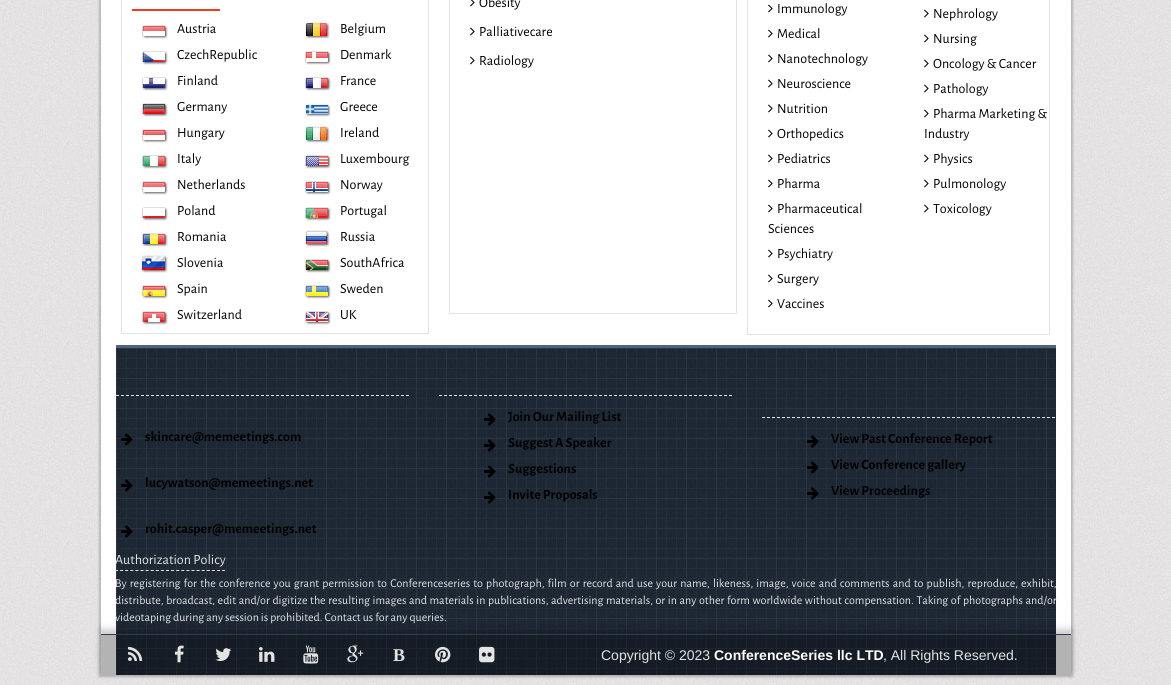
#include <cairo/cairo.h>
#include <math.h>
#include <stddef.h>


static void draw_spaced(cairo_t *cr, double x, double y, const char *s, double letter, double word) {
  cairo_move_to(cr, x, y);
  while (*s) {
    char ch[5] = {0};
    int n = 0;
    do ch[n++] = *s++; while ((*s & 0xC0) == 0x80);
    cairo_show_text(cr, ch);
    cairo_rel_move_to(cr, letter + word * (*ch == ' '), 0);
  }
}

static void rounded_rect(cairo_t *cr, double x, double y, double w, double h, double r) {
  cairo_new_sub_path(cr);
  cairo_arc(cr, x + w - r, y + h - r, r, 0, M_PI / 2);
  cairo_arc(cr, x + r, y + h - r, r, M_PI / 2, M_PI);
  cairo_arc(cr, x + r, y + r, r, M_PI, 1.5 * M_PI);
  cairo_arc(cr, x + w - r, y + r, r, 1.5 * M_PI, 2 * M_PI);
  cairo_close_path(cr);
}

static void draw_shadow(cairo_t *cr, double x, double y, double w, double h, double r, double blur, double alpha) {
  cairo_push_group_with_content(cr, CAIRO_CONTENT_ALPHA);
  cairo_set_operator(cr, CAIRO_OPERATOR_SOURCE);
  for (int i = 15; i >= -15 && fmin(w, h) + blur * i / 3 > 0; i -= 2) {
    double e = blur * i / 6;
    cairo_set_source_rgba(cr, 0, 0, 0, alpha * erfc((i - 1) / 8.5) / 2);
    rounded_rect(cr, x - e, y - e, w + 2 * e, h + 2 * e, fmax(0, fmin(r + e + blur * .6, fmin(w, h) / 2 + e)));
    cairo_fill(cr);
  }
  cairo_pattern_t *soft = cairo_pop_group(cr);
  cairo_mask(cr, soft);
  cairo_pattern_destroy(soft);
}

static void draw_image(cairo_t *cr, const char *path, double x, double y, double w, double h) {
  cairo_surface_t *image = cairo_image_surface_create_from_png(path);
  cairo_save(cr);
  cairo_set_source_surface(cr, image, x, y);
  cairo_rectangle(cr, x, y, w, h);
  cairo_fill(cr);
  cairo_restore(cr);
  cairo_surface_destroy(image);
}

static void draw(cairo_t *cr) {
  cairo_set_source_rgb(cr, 232 / 255.0, 229 / 255.0, 229 / 255.0);
  cairo_paint(cr);
  draw_image(cr, "images/1.png", 0, 0, 1171, 685);
  cairo_set_source_rgb(cr, 0, 0, 0);
  draw_shadow(cr, 99, -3, 974, 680, 0, 1, 0.2);
  cairo_set_source_rgb(cr, 1, 1, 1);
  cairo_rectangle(cr, 101, 0, 970, 675);
  cairo_fill(cr);
  cairo_set_source_rgb(cr, 227 / 255.0, 227 / 255.0, 227 / 255.0);
  cairo_new_path(cr);
  cairo_move_to(cr, 429, -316);
  cairo_line_to(cr, 429, 334);
  cairo_line_to(cr, 428, 333);
  cairo_line_to(cr, 428, -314);
  cairo_close_path(cr);
  cairo_fill(cr);
  cairo_rectangle(cr, 121, 333, 308, 1);
  cairo_fill(cr);
  cairo_new_path(cr);
  cairo_move_to(cr, 121, 334);
  cairo_line_to(cr, 121, -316);
  cairo_line_to(cr, 122, -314);
  cairo_line_to(cr, 122, 333);
  cairo_close_path(cr);
  cairo_fill(cr);
  cairo_set_source_rgb(cr, 233 / 255.0, 63 / 255.0, 32 / 255.0);
  cairo_rectangle(cr, 132, 9, 88, 2);
  cairo_fill(cr);
  draw_image(cr, "images/2.png", 142, 25, 26, 14);
  draw_image(cr, "images/3.png", 305, 22, 25, 17);
  draw_image(cr, "images/4.png", 142, 51, 26, 14);
  draw_image(cr, "images/5.png", 305, 51, 26, 14);
  draw_image(cr, "images/6.png", 142, 77, 26, 14);
  draw_image(cr, "images/7.png", 305, 77, 26, 14);
  draw_image(cr, "images/8.png", 142, 103, 26, 14);
  draw_image(cr, "images/9.png", 305, 104, 26, 13);
  draw_image(cr, "images/10.png", 142, 129, 26, 14);
  draw_image(cr, "images/11.png", 305, 126, 25, 17);
  draw_image(cr, "images/12.png", 142, 155, 26, 14);
  draw_image(cr, "images/13.png", 305, 155, 26, 14);
  draw_image(cr, "images/2.png", 142, 181, 26, 14);
  draw_image(cr, "images/14.png", 305, 181, 26, 14);
  draw_image(cr, "images/15.png", 142, 207, 26, 14);
  draw_image(cr, "images/16.png", 305, 207, 26, 14);
  draw_image(cr, "images/17.png", 142, 233, 26, 14);
  draw_image(cr, "images/18.png", 305, 230, 25, 17);
  draw_image(cr, "images/19.png", 141, 255, 27, 18);
  draw_image(cr, "images/20.png", 305, 259, 26, 14);
  draw_image(cr, "images/21.png", 142, 285, 26, 14);
  draw_image(cr, "images/22.png", 305, 285, 26, 14);
  draw_image(cr, "images/23.png", 142, 311, 26, 14);
  draw_image(cr, "images/24.png", 305, 311, 26, 14);
  cairo_set_source_rgb(cr, 227 / 255.0, 227 / 255.0, 227 / 255.0);
  cairo_new_path(cr);
  cairo_move_to(cr, 737, -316);
  cairo_line_to(cr, 737, 314);
  cairo_line_to(cr, 736, 313);
  cairo_line_to(cr, 736, -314);
  cairo_close_path(cr);
  cairo_fill(cr);
  cairo_rectangle(cr, 449, 313, 288, 1);
  cairo_fill(cr);
  cairo_new_path(cr);
  cairo_move_to(cr, 449, 314);
  cairo_line_to(cr, 449, -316);
  cairo_line_to(cr, 450, -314);
  cairo_line_to(cr, 450, 313);
  cairo_close_path(cr);
  cairo_fill(cr);
  draw_image(cr, "images/25.png", 470, 0, 5, 7);
  draw_image(cr, "images/26.png", 470, 27, 5, 9);
  draw_image(cr, "images/26.png", 470, 56, 5, 9);
  cairo_new_path(cr);
  cairo_move_to(cr, 1050, -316);
  cairo_line_to(cr, 1050, 335);
  cairo_line_to(cr, 1049, 334);
  cairo_line_to(cr, 1049, -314);
  cairo_close_path(cr);
  cairo_fill(cr);
  cairo_rectangle(cr, 747, 334, 303, 1);
  cairo_fill(cr);
  cairo_new_path(cr);
  cairo_move_to(cr, 747, 335);
  cairo_line_to(cr, 747, -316);
  cairo_line_to(cr, 748, -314);
  cairo_line_to(cr, 748, 334);
  cairo_close_path(cr);
  cairo_fill(cr);
  draw_image(cr, "images/26.png", 768, 4, 5, 9);
  draw_image(cr, "images/26.png", 768, 29, 5, 9);
  draw_image(cr, "images/26.png", 768, 54, 5, 9);
  draw_image(cr, "images/26.png", 768, 79, 5, 9);
  draw_image(cr, "images/26.png", 768, 104, 5, 9);
  draw_image(cr, "images/26.png", 768, 129, 5, 9);
  draw_image(cr, "images/26.png", 768, 154, 5, 9);
  draw_image(cr, "images/26.png", 768, 179, 5, 9);
  draw_image(cr, "images/26.png", 768, 204, 5, 9);
  draw_image(cr, "images/26.png", 768, 249, 5, 9);
  draw_image(cr, "images/26.png", 768, 274, 5, 9);
  draw_image(cr, "images/26.png", 768, 299, 5, 9);
  draw_image(cr, "images/26.png", 924, 9, 5, 9);
  draw_image(cr, "images/26.png", 924, 34, 5, 9);
  draw_image(cr, "images/26.png", 924, 59, 5, 9);
  draw_image(cr, "images/26.png", 924, 84, 5, 9);
  draw_image(cr, "images/26.png", 924, 109, 5, 9);
  draw_image(cr, "images/26.png", 924, 154, 5, 9);
  draw_image(cr, "images/26.png", 924, 179, 5, 9);
  draw_image(cr, "images/26.png", 924, 204, 5, 9);
  cairo_set_source_rgb(cr, 23 / 255.0, 33 / 255.0, 47 / 255.0);
  cairo_rectangle(cr, 116, 348, 940, 327);
  cairo_fill(cr);
  draw_image(cr, "images/27.png", 116, 348, 940, 327);
  cairo_set_source_rgb(cr, 80 / 255.0, 99 / 255.0, 125 / 255.0);
  cairo_rectangle(cr, 116, 345, 940, 3);
  cairo_fill(cr);
  cairo_new_path(cr);
  cairo_move_to(cr, 116, 395.5);
  cairo_line_to(cr, 409, 395.5);
  cairo_set_source_rgb(cr, 227 / 255.0, 227 / 255.0, 227 / 255.0);
  cairo_set_line_width(cr, 1);
  cairo_set_dash(cr, (double[]){3, 2}, 2, 0);
  cairo_stroke(cr);
  draw_image(cr, "images/28.png", 121, 433, 12, 13);
  draw_image(cr, "images/29.png", 121, 479, 12, 13);
  draw_image(cr, "images/30.png", 121, 525, 12, 13);
  cairo_new_path(cr);
  cairo_move_to(cr, 439, 395.5);
  cairo_line_to(cr, 732, 395.5);
  cairo_stroke(cr);
  draw_image(cr, "images/31.png", 484, 413, 12, 13);
  draw_image(cr, "images/32.png", 484, 439, 12, 13);
  draw_image(cr, "images/33.png", 484, 465, 12, 13);
  draw_image(cr, "images/34.png", 484, 491, 12, 13);
  cairo_new_path(cr);
  cairo_move_to(cr, 762, 417.5);
  cairo_line_to(cr, 1055, 417.5);
  cairo_stroke(cr);
  draw_image(cr, "images/35.png", 807, 435, 12, 13);
  draw_image(cr, "images/36.png", 807, 461, 12, 13);
  draw_image(cr, "images/37.png", 807, 487, 12, 13);
  cairo_new_path(cr);
  cairo_move_to(cr, 115, 570.5);
  cairo_line_to(cr, 225, 570.5);
  cairo_set_dash(cr, (double[]){3, 2.1}, 2, 0);
  cairo_stroke(cr);
  cairo_save(cr);
  cairo_set_fill_rule(cr, CAIRO_FILL_RULE_EVEN_ODD);
  cairo_new_path(cr);
  cairo_move_to(cr, 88, 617);
  cairo_line_to(cr, 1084, 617);
  cairo_line_to(cr, 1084, 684);
  cairo_line_to(cr, 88, 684);
  cairo_close_path(cr);
  cairo_move_to(cr, 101, 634);
  cairo_line_to(cr, 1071, 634);
  cairo_line_to(cr, 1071, 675);
  cairo_line_to(cr, 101, 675);
  cairo_close_path(cr);
  cairo_clip(cr);
  cairo_set_source_rgb(cr, 0, 0, 0);
  draw_shadow(cr, 100, 629, 972, 43, 0, 3.5, 0.2);
  cairo_restore(cr);
  cairo_set_source_rgba(cr, 0, 0, 0, 0.3);
  cairo_rectangle(cr, 101, 635, 970, 40);
  cairo_fill(cr);
  cairo_set_source_rgb(cr, 46 / 255.0, 61 / 255.0, 84 / 255.0);
  cairo_rectangle(cr, 101, 634, 970, 1);
  cairo_fill(cr);
  draw_image(cr, "images/38.png", 128, 646, 15, 15);
  draw_image(cr, "images/39.png", 174, 645, 10, 18);
  draw_image(cr, "images/40.png", 215, 648, 17, 13);
  draw_image(cr, "images/41.png", 259, 647, 16, 15);
  draw_image(cr, "images/42.png", 303, 645, 16, 19);
  draw_image(cr, "images/43.png", 347, 645, 17, 18);
  draw_image(cr, "images/44.png", 435, 646, 16, 17);
  draw_image(cr, "images/45.png", 479, 646, 16, 17);
  cairo_select_font_face(cr, "Alegreya Sans", CAIRO_FONT_SLANT_NORMAL, CAIRO_FONT_WEIGHT_NORMAL);
  cairo_set_font_size(cr, 14);
  cairo_set_source_rgb(cr, 0, 0, 0);
  cairo_move_to(cr, 177, 33);
  cairo_show_text(cr, "Austria");
  cairo_move_to(cr, 340, 33);
  cairo_show_text(cr, "Belgium");
  cairo_move_to(cr, 177, 59);
  cairo_show_text(cr, "CzechRepublic");
  cairo_move_to(cr, 340, 59);
  cairo_show_text(cr, "Denmark");
  cairo_move_to(cr, 177, 85);
  cairo_show_text(cr, "Finland");
  cairo_move_to(cr, 340, 85);
  cairo_show_text(cr, "France");
  cairo_move_to(cr, 177, 111);
  cairo_show_text(cr, "Germany");
  cairo_move_to(cr, 340, 111);
  cairo_show_text(cr, "Greece");
  cairo_move_to(cr, 177, 137);
  cairo_show_text(cr, "Hungary");
  cairo_move_to(cr, 340, 137);
  cairo_show_text(cr, "Ireland");
  cairo_move_to(cr, 177, 163);
  cairo_show_text(cr, "Italy");
  cairo_move_to(cr, 340, 163);
  cairo_show_text(cr, "Luxembourg");
  cairo_move_to(cr, 177, 189);
  cairo_show_text(cr, "Netherlands");
  cairo_move_to(cr, 340, 189);
  cairo_show_text(cr, "Norway");
  cairo_move_to(cr, 177, 215);
  cairo_show_text(cr, "Poland");
  cairo_move_to(cr, 340, 215);
  cairo_show_text(cr, "Portugal");
  cairo_move_to(cr, 177, 241);
  cairo_show_text(cr, "Romania");
  cairo_move_to(cr, 340, 241);
  cairo_show_text(cr, "Russia");
  cairo_move_to(cr, 177, 267);
  cairo_show_text(cr, "Slovenia");
  cairo_move_to(cr, 340, 267);
  cairo_show_text(cr, "SouthAfrica");
  cairo_move_to(cr, 177, 293);
  cairo_show_text(cr, "Spain");
  cairo_move_to(cr, 340, 293);
  cairo_show_text(cr, "Sweden");
  cairo_move_to(cr, 177, 319);
  cairo_show_text(cr, "Switzerland");
  cairo_move_to(cr, 340, 319);
  cairo_show_text(cr, "UK");
  cairo_move_to(cr, 479, 7);
  cairo_show_text(cr, "Obesity");
  cairo_move_to(cr, 479, 36);
  cairo_show_text(cr, "Palliativecare");
  cairo_move_to(cr, 479, 65);
  cairo_show_text(cr, "Radiology");
  cairo_move_to(cr, 777, 13);
  cairo_show_text(cr, "Immunology");
  cairo_move_to(cr, 777, 38);
  cairo_show_text(cr, "Medical");
  cairo_move_to(cr, 777, 63);
  cairo_show_text(cr, "Nanotechnology");
  cairo_move_to(cr, 777, 88);
  cairo_show_text(cr, "Neuroscience");
  cairo_move_to(cr, 777, 113);
  cairo_show_text(cr, "Nutrition");
  cairo_move_to(cr, 777, 138);
  cairo_show_text(cr, "Orthopedics");
  cairo_move_to(cr, 777, 163);
  cairo_show_text(cr, "Pediatrics");
  cairo_move_to(cr, 777, 188);
  cairo_show_text(cr, "Pharma");
  cairo_move_to(cr, 777, 213);
  cairo_show_text(cr, "Pharmaceutical");
  cairo_move_to(cr, 768, 233);
  cairo_show_text(cr, "Sciences");
  cairo_move_to(cr, 777, 258);
  cairo_show_text(cr, "Psychiatry");
  cairo_move_to(cr, 777, 283);
  cairo_show_text(cr, "Surgery");
  cairo_move_to(cr, 777, 308);
  cairo_show_text(cr, "Vaccines");
  cairo_move_to(cr, 933, 18);
  cairo_show_text(cr, "Nephrology");
  cairo_move_to(cr, 933, 43);
  cairo_show_text(cr, "Nursing");
  cairo_move_to(cr, 933, 68);
  cairo_show_text(cr, "Oncology & Cancer");
  cairo_move_to(cr, 933, 93);
  cairo_show_text(cr, "Pathology");
  cairo_move_to(cr, 933, 118);
  cairo_show_text(cr, "Pharma Marketing &");
  cairo_move_to(cr, 924, 138);
  cairo_show_text(cr, "Industry");
  cairo_move_to(cr, 933, 163);
  cairo_show_text(cr, "Physics");
  cairo_move_to(cr, 933, 188);
  cairo_show_text(cr, "Pulmonology");
  cairo_move_to(cr, 933, 213);
  cairo_show_text(cr, "Toxicology");
  cairo_select_font_face(cr, "Alegreya Sans", CAIRO_FONT_SLANT_NORMAL, CAIRO_FONT_WEIGHT_BOLD);
  cairo_move_to(cr, 145, 441);
  cairo_show_text(cr, "skincare@memeetings.com");
  cairo_move_to(cr, 145, 487);
  cairo_show_text(cr, "lucywatson@memeetings.net");
  cairo_move_to(cr, 145, 533);
  cairo_show_text(cr, "rohit.casper@memeetings.net");
  cairo_move_to(cr, 508, 421);
  cairo_show_text(cr, "Join Our Mailing List");
  cairo_move_to(cr, 508, 447);
  cairo_show_text(cr, "Suggest A Speaker");
  cairo_move_to(cr, 508, 473);
  cairo_show_text(cr, "Suggestions");
  cairo_move_to(cr, 508, 499);
  cairo_show_text(cr, "Invite Proposals");
  cairo_move_to(cr, 831, 443);
  cairo_show_text(cr, "View Past Conference Report");
  cairo_move_to(cr, 831, 469);
  cairo_show_text(cr, "View Conference gallery");
  cairo_move_to(cr, 831, 495);
  cairo_show_text(cr, "View Proceedings");
  cairo_select_font_face(cr, "Alegreya Sans", CAIRO_FONT_SLANT_NORMAL, CAIRO_FONT_WEIGHT_NORMAL);
  cairo_set_source_rgb(cr, 227 / 255.0, 227 / 255.0, 227 / 255.0);
  cairo_move_to(cr, 115, 564);
  cairo_show_text(cr, "Authorization Policy");
  cairo_set_font_size(cr, 12);
  draw_spaced(cr, 115, 587, "By registering for the conference you grant permission to Conferenceseries to photograph, film or record and use your name, likeness, image, voice and comments and to publish, reproduce, exhibit,", 0, 1.15);
  draw_spaced(cr, 115, 604, "distribute, broadcast, edit and/or digitize the resulting images and materials in publications, advertising materials, or in any other form worldwide without compensation. Taking of photographs and/or", 0, 0.6);
  cairo_move_to(cr, 115, 621);
  cairo_show_text(cr, "videotaping during any session is prohibited. Contact us for any queries.");
  cairo_select_font_face(cr, "Liberation Serif", CAIRO_FONT_SLANT_NORMAL, CAIRO_FONT_WEIGHT_BOLD);
  cairo_set_font_size(cr, 18);
  cairo_move_to(cr, 393, 661);
  cairo_show_text(cr, "B");
  cairo_select_font_face(cr, "Liberation Sans", CAIRO_FONT_SLANT_NORMAL, CAIRO_FONT_WEIGHT_NORMAL);
  cairo_set_font_size(cr, 14);
  cairo_move_to(cr, 601, 660);
  cairo_show_text(cr, "Copyright © 2023");
  cairo_select_font_face(cr, "Liberation Sans", CAIRO_FONT_SLANT_NORMAL, CAIRO_FONT_WEIGHT_BOLD);
  cairo_set_source_rgb(cr, 1, 1, 1);
  cairo_move_to(cr, 714, 660);
  cairo_show_text(cr, "ConferenceSeries llc LTD");
  cairo_select_font_face(cr, "Liberation Sans", CAIRO_FONT_SLANT_NORMAL, CAIRO_FONT_WEIGHT_NORMAL);
  cairo_set_source_rgb(cr, 227 / 255.0, 227 / 255.0, 227 / 255.0);
  cairo_move_to(cr, 883, 660);
  cairo_show_text(cr, ", All Rights Reserved.");
}

int main(void) {
  cairo_surface_t *surface = cairo_image_surface_create(CAIRO_FORMAT_RGB24, 1171, 685);
  cairo_t *cr = cairo_create(surface);
  cairo_font_options_t *options = cairo_font_options_create();
  cairo_font_options_set_hint_metrics(options, CAIRO_HINT_METRICS_OFF);
  cairo_font_options_set_hint_style(options, CAIRO_HINT_STYLE_NONE);
  cairo_set_font_options(cr, options);
  cairo_set_miter_limit(cr, 4);
  draw(cr);
  cairo_surface_write_to_png(surface, "out.png");
  cairo_font_options_destroy(options);
  cairo_destroy(cr);
  cairo_surface_destroy(surface);
  return 0;
}
